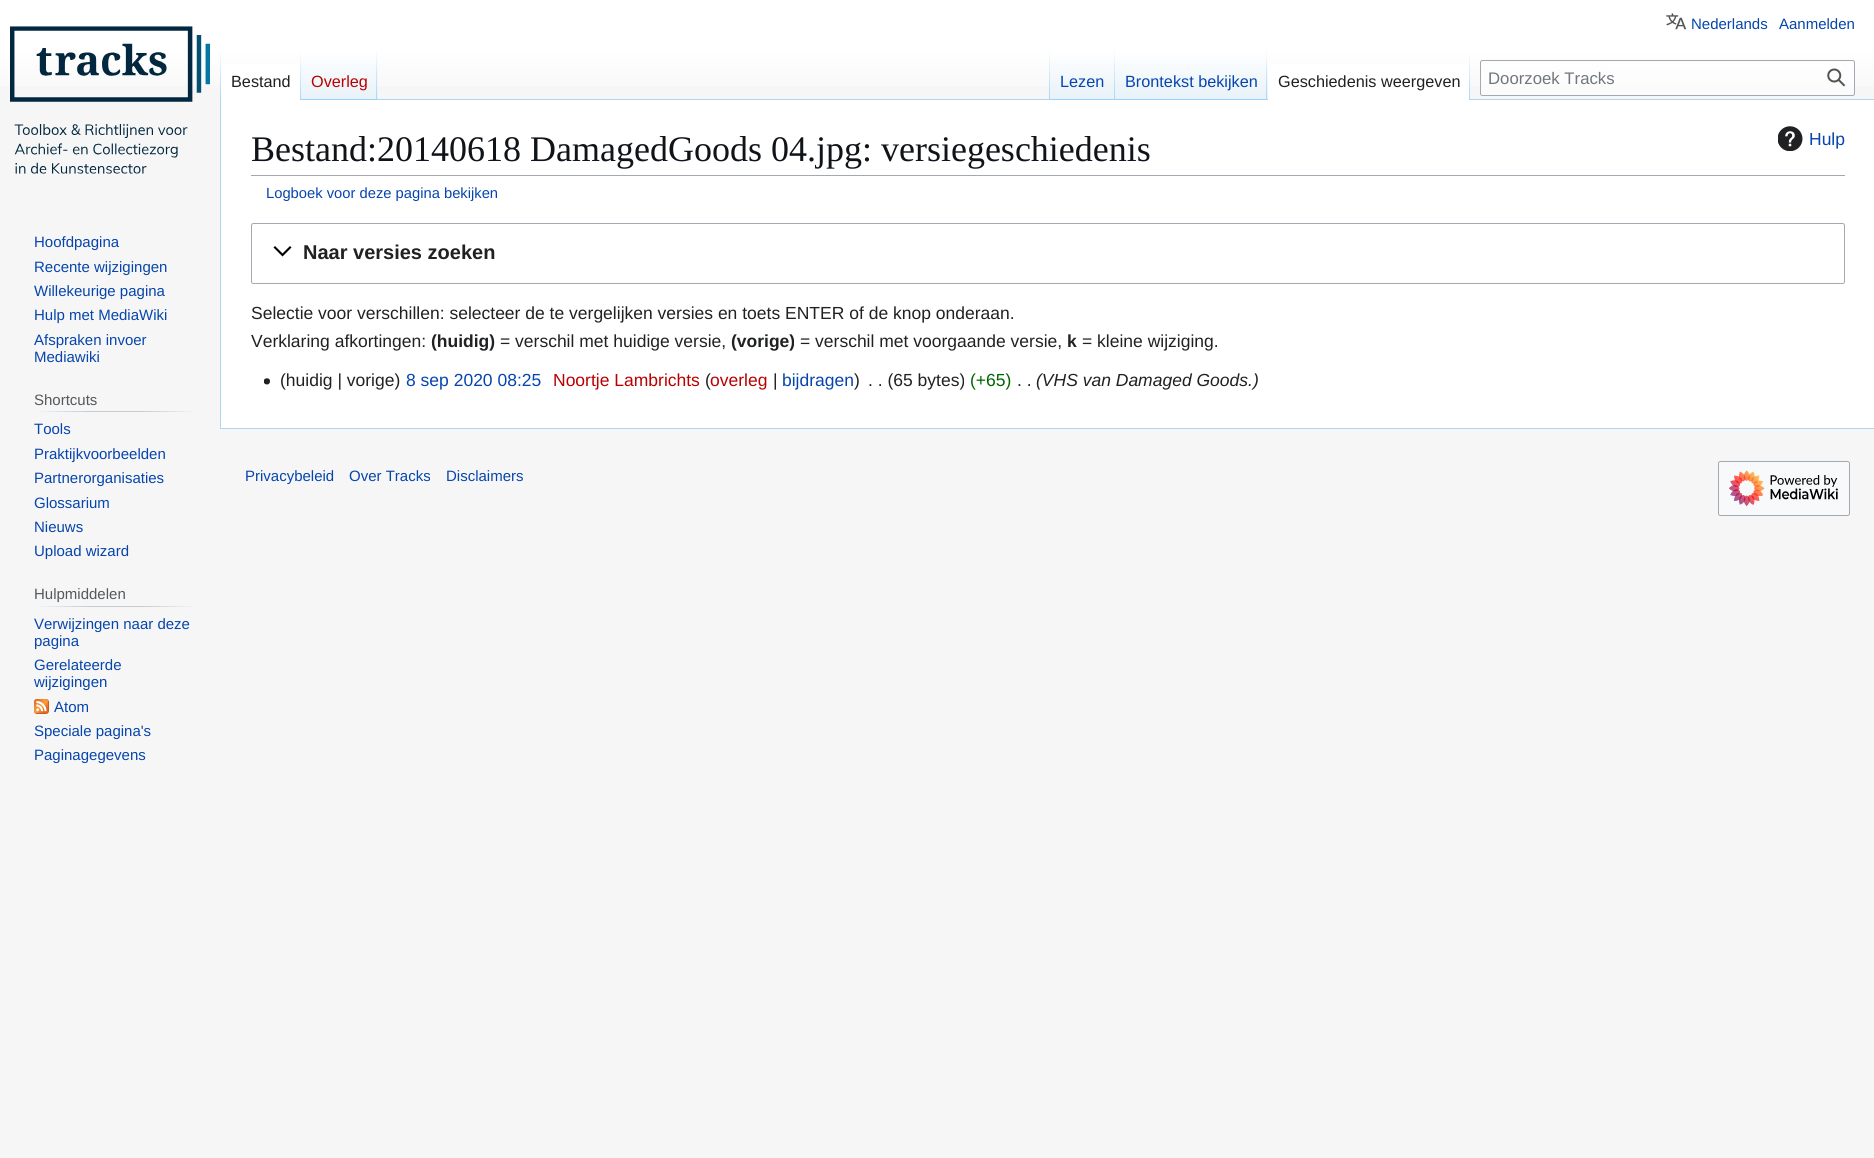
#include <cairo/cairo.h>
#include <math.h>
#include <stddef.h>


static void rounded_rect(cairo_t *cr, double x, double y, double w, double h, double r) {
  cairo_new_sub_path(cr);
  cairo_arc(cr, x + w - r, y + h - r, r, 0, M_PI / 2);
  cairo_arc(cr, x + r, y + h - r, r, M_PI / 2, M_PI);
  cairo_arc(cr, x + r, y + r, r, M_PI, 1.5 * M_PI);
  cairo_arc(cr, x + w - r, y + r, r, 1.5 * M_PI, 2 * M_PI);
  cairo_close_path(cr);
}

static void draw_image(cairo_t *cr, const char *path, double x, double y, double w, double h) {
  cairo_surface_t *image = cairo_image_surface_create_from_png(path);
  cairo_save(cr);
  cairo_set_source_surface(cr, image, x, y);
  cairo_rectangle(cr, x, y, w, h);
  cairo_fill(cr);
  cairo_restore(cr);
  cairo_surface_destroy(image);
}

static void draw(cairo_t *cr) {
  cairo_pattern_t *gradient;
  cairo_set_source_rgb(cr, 246 / 255.0, 246 / 255.0, 246 / 255.0);
  cairo_paint(cr);
  gradient = cairo_pattern_create_linear(938, 0, 938, 100);
  cairo_pattern_add_color_stop_rgba(gradient, 0.5, 1, 1, 1, 1);
  cairo_pattern_add_color_stop_rgba(gradient, 1, 246 / 255.0, 246 / 255.0, 246 / 255.0, 1);
  cairo_set_source(cr, gradient);
  cairo_pattern_destroy(gradient);
  cairo_rectangle(cr, 0, 0, 1874, 86);
  cairo_fill(cr);
  draw_image(cr, "images/1.png", 1666, 13, 20, 17);
  cairo_set_source_rgb(cr, 167 / 255.0, 215 / 255.0, 249 / 255.0);
  cairo_rectangle(cr, 220, 428, 1654, 1);
  cairo_fill(cr);
  cairo_rectangle(cr, 220, 99, 1, 330);
  cairo_fill(cr);
  gradient = cairo_pattern_create_linear(221, 50, 221, 100);
  cairo_pattern_add_color_stop_rgba(gradient, 0, 167 / 255.0, 215 / 255.0, 249 / 255.0, 0);
  cairo_pattern_add_color_stop_rgba(gradient, 1, 167 / 255.0, 215 / 255.0, 249 / 255.0, 1);
  cairo_set_source(cr, gradient);
  cairo_pattern_destroy(gradient);
  cairo_rectangle(cr, 220, 50, 1, 50);
  cairo_fill(cr);
  cairo_set_source_rgb(cr, 1, 1, 1);
  cairo_rectangle(cr, 221, 64, 79, 36);
  cairo_fill(cr);
  gradient = cairo_pattern_create_linear(301, 50, 301, 100);
  cairo_pattern_add_color_stop_rgba(gradient, 0, 1, 1, 1, 1);
  cairo_pattern_add_color_stop_rgba(gradient, 1, 167 / 255.0, 215 / 255.0, 249 / 255.0, 1);
  cairo_set_source(cr, gradient);
  cairo_pattern_destroy(gradient);
  cairo_rectangle(cr, 300, 50, 1, 50);
  cairo_fill(cr);
  gradient = cairo_pattern_create_linear(339, 100, 339, 50);
  cairo_pattern_add_color_stop_rgba(gradient, 0, 119 / 255.0, 193 / 255.0, 246 / 255.0, 1);
  cairo_pattern_add_color_stop_rgba(gradient, 0.03, 232 / 255.0, 242 / 255.0, 248 / 255.0, 1);
  cairo_pattern_add_color_stop_rgba(gradient, 1, 1, 1, 1, 1);
  cairo_set_source(cr, gradient);
  cairo_pattern_destroy(gradient);
  cairo_rectangle(cr, 301, 57, 77, 43);
  cairo_fill(cr);
  gradient = cairo_pattern_create_linear(377, 50, 377, 100);
  cairo_pattern_add_color_stop_rgba(gradient, 0, 167 / 255.0, 215 / 255.0, 249 / 255.0, 0);
  cairo_pattern_add_color_stop_rgba(gradient, 1, 167 / 255.0, 215 / 255.0, 249 / 255.0, 1);
  cairo_set_source(cr, gradient);
  cairo_pattern_destroy(gradient);
  cairo_rectangle(cr, 376, 50, 1, 50);
  cairo_fill(cr);
  cairo_set_source_rgb(cr, 167 / 255.0, 215 / 255.0, 249 / 255.0);
  cairo_rectangle(cr, 378, 99, 1496, 1);
  cairo_fill(cr);
  gradient = cairo_pattern_create_linear(1049, 50, 1049, 100);
  cairo_pattern_add_color_stop_rgba(gradient, 0, 167 / 255.0, 215 / 255.0, 249 / 255.0, 0);
  cairo_pattern_add_color_stop_rgba(gradient, 1, 167 / 255.0, 215 / 255.0, 249 / 255.0, 1);
  cairo_set_source(cr, gradient);
  cairo_pattern_destroy(gradient);
  cairo_rectangle(cr, 1049, 50, 1, 50);
  cairo_fill(cr);
  gradient = cairo_pattern_create_linear(1083, 100, 1083, 50);
  cairo_pattern_add_color_stop_rgba(gradient, 0, 119 / 255.0, 193 / 255.0, 246 / 255.0, 1);
  cairo_pattern_add_color_stop_rgba(gradient, 0.03, 232 / 255.0, 242 / 255.0, 248 / 255.0, 1);
  cairo_pattern_add_color_stop_rgba(gradient, 1, 1, 1, 1, 1);
  cairo_set_source(cr, gradient);
  cairo_pattern_destroy(gradient);
  cairo_rectangle(cr, 1050, 57, 65, 43);
  cairo_fill(cr);
  gradient = cairo_pattern_create_linear(1114, 50, 1114, 100);
  cairo_pattern_add_color_stop_rgba(gradient, 0, 167 / 255.0, 215 / 255.0, 249 / 255.0, 0);
  cairo_pattern_add_color_stop_rgba(gradient, 1, 167 / 255.0, 215 / 255.0, 249 / 255.0, 1);
  cairo_set_source(cr, gradient);
  cairo_pattern_destroy(gradient);
  cairo_rectangle(cr, 1114, 50, 1, 50);
  cairo_fill(cr);
  gradient = cairo_pattern_create_linear(1191, 100, 1191, 50);
  cairo_pattern_add_color_stop_rgba(gradient, 0, 119 / 255.0, 193 / 255.0, 246 / 255.0, 1);
  cairo_pattern_add_color_stop_rgba(gradient, 0.03, 232 / 255.0, 242 / 255.0, 248 / 255.0, 1);
  cairo_pattern_add_color_stop_rgba(gradient, 1, 1, 1, 1, 1);
  cairo_set_source(cr, gradient);
  cairo_pattern_destroy(gradient);
  cairo_rectangle(cr, 1115, 57, 153, 43);
  cairo_fill(cr);
  gradient = cairo_pattern_create_linear(1267, 50, 1267, 100);
  cairo_pattern_add_color_stop_rgba(gradient, 0, 167 / 255.0, 215 / 255.0, 249 / 255.0, 0);
  cairo_pattern_add_color_stop_rgba(gradient, 1, 167 / 255.0, 215 / 255.0, 249 / 255.0, 1);
  cairo_set_source(cr, gradient);
  cairo_pattern_destroy(gradient);
  cairo_rectangle(cr, 1266, 50, 1, 50);
  cairo_fill(cr);
  cairo_set_source_rgb(cr, 1, 1, 1);
  cairo_rectangle(cr, 1268, 64, 201, 36);
  cairo_fill(cr);
  gradient = cairo_pattern_create_linear(1469, 50, 1469, 100);
  cairo_pattern_add_color_stop_rgba(gradient, 0, 1, 1, 1, 1);
  cairo_pattern_add_color_stop_rgba(gradient, 1, 167 / 255.0, 215 / 255.0, 249 / 255.0, 1);
  cairo_set_source(cr, gradient);
  cairo_pattern_destroy(gradient);
  cairo_rectangle(cr, 1469, 50, 1, 50);
  cairo_fill(cr);
  cairo_set_source_rgba(cr, 1, 1, 1, 0.5);
  rounded_rect(cr, 1480.5, 60.5, 374, 35, 2);
  cairo_fill_preserve(cr);
  cairo_set_source_rgb(cr, 162 / 255.0, 169 / 255.0, 177 / 255.0);
  cairo_set_line_width(cr, 1);
  cairo_stroke(cr);
  draw_image(cr, "images/2.png", 1827, 68, 19, 19);
  draw_image(cr, "images/3.png", 10, 26, 200, 148);
  gradient = cairo_pattern_create_linear(34, 412, 198, 412);
  cairo_pattern_add_color_stop_rgba(gradient, 0, 246 / 255.0, 246 / 255.0, 246 / 255.0, 1);
  cairo_pattern_add_color_stop_rgba(gradient, 0.33, 200 / 255.0, 204 / 255.0, 209 / 255.0, 1);
  cairo_pattern_add_color_stop_rgba(gradient, 0.66, 200 / 255.0, 204 / 255.0, 209 / 255.0, 1);
  cairo_pattern_add_color_stop_rgba(gradient, 1, 246 / 255.0, 246 / 255.0, 246 / 255.0, 1);
  cairo_set_source(cr, gradient);
  cairo_pattern_destroy(gradient);
  cairo_rectangle(cr, 34, 411, 164, 1);
  cairo_fill(cr);
  gradient = cairo_pattern_create_linear(34, 607, 198, 607);
  cairo_pattern_add_color_stop_rgba(gradient, 0, 246 / 255.0, 246 / 255.0, 246 / 255.0, 1);
  cairo_pattern_add_color_stop_rgba(gradient, 0.33, 200 / 255.0, 204 / 255.0, 209 / 255.0, 1);
  cairo_pattern_add_color_stop_rgba(gradient, 0.66, 200 / 255.0, 204 / 255.0, 209 / 255.0, 1);
  cairo_pattern_add_color_stop_rgba(gradient, 1, 246 / 255.0, 246 / 255.0, 246 / 255.0, 1);
  cairo_set_source(cr, gradient);
  cairo_pattern_destroy(gradient);
  cairo_rectangle(cr, 34, 606, 164, 1);
  cairo_fill(cr);
  draw_image(cr, "images/4.png", 34, 699, 15, 15);
  cairo_set_source_rgb(cr, 1, 1, 1);
  cairo_rectangle(cr, 221, 100, 1653, 328);
  cairo_fill(cr);
  cairo_set_source_rgb(cr, 162 / 255.0, 169 / 255.0, 177 / 255.0);
  cairo_rectangle(cr, 251, 175, 1594, 1);
  cairo_fill(cr);
  draw_image(cr, "images/5.png", 1778, 126, 25, 25);
  rounded_rect(cr, 251.5, 223.5, 1593, 60, 2);
  cairo_stroke(cr);
  cairo_set_source_rgb(cr, 0, 0, 0);
  cairo_new_path(cr);
  cairo_move_to(cr, 290, 246);
  cairo_line_to(cr, 282.5, 253.5);
  cairo_line_to(cr, 275, 246);
  cairo_line_to(cr, 273.5, 247.5);
  cairo_line_to(cr, 282.5, 256.5);
  cairo_line_to(cr, 291.5, 247.5);
  cairo_close_path(cr);
  cairo_fill(cr);
  draw_image(cr, "images/6.png", 264, 378, 6, 7);
  cairo_set_source_rgb(cr, 248 / 255.0, 249 / 255.0, 250 / 255.0);
  rounded_rect(cr, 1718.5, 461.5, 131, 54, 2);
  cairo_fill_preserve(cr);
  cairo_set_source_rgb(cr, 162 / 255.0, 169 / 255.0, 177 / 255.0);
  cairo_stroke(cr);
  draw_image(cr, "images/7.png", 1729, 470, 109, 37);
  cairo_select_font_face(cr, "Liberation Sans", CAIRO_FONT_SLANT_NORMAL, CAIRO_FONT_WEIGHT_NORMAL);
  cairo_set_font_size(cr, 15);
  cairo_set_source_rgb(cr, 6 / 255.0, 69 / 255.0, 173 / 255.0);
  cairo_move_to(cr, 1691, 29);
  cairo_show_text(cr, "Nederlands");
  cairo_move_to(cr, 1779, 29);
  cairo_show_text(cr, "Aanmelden");
  cairo_set_font_size(cr, 16.25);
  cairo_set_source_rgb(cr, 32 / 255.0, 33 / 255.0, 34 / 255.0);
  cairo_move_to(cr, 231, 87);
  cairo_show_text(cr, "Bestand");
  cairo_set_source_rgb(cr, 186 / 255.0, 0, 0);
  cairo_move_to(cr, 311, 87);
  cairo_show_text(cr, "Overleg");
  cairo_set_source_rgb(cr, 6 / 255.0, 69 / 255.0, 173 / 255.0);
  cairo_move_to(cr, 1060, 87);
  cairo_show_text(cr, "Lezen");
  cairo_move_to(cr, 1125, 87);
  cairo_show_text(cr, "Brontekst bekijken");
  cairo_set_source_rgb(cr, 32 / 255.0, 33 / 255.0, 34 / 255.0);
  cairo_move_to(cr, 1278, 87);
  cairo_show_text(cr, "Geschiedenis weergeven");
  cairo_set_font_size(cr, 16.75);
  cairo_set_source_rgb(cr, 114 / 255.0, 119 / 255.0, 125 / 255.0);
  cairo_move_to(cr, 1488, 84);
  cairo_show_text(cr, "Doorzoek Tracks");
  cairo_set_font_size(cr, 15);
  cairo_set_source_rgb(cr, 6 / 255.0, 69 / 255.0, 173 / 255.0);
  cairo_move_to(cr, 34, 247);
  cairo_show_text(cr, "Hoofdpagina");
  cairo_move_to(cr, 34, 272);
  cairo_show_text(cr, "Recente wijzigingen");
  cairo_move_to(cr, 34, 296);
  cairo_show_text(cr, "Willekeurige pagina");
  cairo_move_to(cr, 34, 320);
  cairo_show_text(cr, "Hulp met MediaWiki");
  cairo_move_to(cr, 34, 345);
  cairo_show_text(cr, "Afspraken invoer");
  cairo_move_to(cr, 34, 362);
  cairo_show_text(cr, "Mediawiki");
  cairo_set_source_rgb(cr, 84 / 255.0, 89 / 255.0, 93 / 255.0);
  cairo_move_to(cr, 34, 405);
  cairo_show_text(cr, "Shortcuts");
  cairo_set_source_rgb(cr, 6 / 255.0, 69 / 255.0, 173 / 255.0);
  cairo_move_to(cr, 34, 434);
  cairo_show_text(cr, "Tools");
  cairo_move_to(cr, 34, 459);
  cairo_show_text(cr, "Praktijkvoorbeelden");
  cairo_move_to(cr, 34, 483);
  cairo_show_text(cr, "Partnerorganisaties");
  cairo_move_to(cr, 34, 508);
  cairo_show_text(cr, "Glossarium");
  cairo_move_to(cr, 34, 532);
  cairo_show_text(cr, "Nieuws");
  cairo_move_to(cr, 34, 556);
  cairo_show_text(cr, "Upload wizard");
  cairo_set_source_rgb(cr, 84 / 255.0, 89 / 255.0, 93 / 255.0);
  cairo_move_to(cr, 34, 599);
  cairo_show_text(cr, "Hulpmiddelen");
  cairo_set_source_rgb(cr, 6 / 255.0, 69 / 255.0, 173 / 255.0);
  cairo_move_to(cr, 34, 629);
  cairo_show_text(cr, "Verwijzingen naar deze");
  cairo_move_to(cr, 34, 646);
  cairo_show_text(cr, "pagina");
  cairo_move_to(cr, 34, 670);
  cairo_show_text(cr, "Gerelateerde");
  cairo_move_to(cr, 34, 687);
  cairo_show_text(cr, "wijzigingen");
  cairo_move_to(cr, 54, 712);
  cairo_show_text(cr, "Atom");
  cairo_move_to(cr, 34, 736);
  cairo_show_text(cr, "Speciale pagina's");
  cairo_move_to(cr, 34, 760);
  cairo_show_text(cr, "Paginagegevens");
  cairo_select_font_face(cr, "Liberation Serif", CAIRO_FONT_SLANT_NORMAL, CAIRO_FONT_WEIGHT_NORMAL);
  cairo_set_font_size(cr, 36);
  cairo_set_source_rgb(cr, 16 / 255.0, 20 / 255.0, 24 / 255.0);
  cairo_move_to(cr, 251, 161);
  cairo_show_text(cr, "Bestand:20140618 DamagedGoods 04.jpg: versiegeschiedenis");
  cairo_select_font_face(cr, "Liberation Sans", CAIRO_FONT_SLANT_NORMAL, CAIRO_FONT_WEIGHT_NORMAL);
  cairo_set_font_size(cr, 17.5);
  cairo_set_source_rgb(cr, 6 / 255.0, 69 / 255.0, 173 / 255.0);
  cairo_move_to(cr, 1809, 145);
  cairo_show_text(cr, "Hulp");
  cairo_set_font_size(cr, 14.75);
  cairo_move_to(cr, 266, 198);
  cairo_show_text(cr, "Logboek voor deze pagina bekijken");
  cairo_select_font_face(cr, "Liberation Sans", CAIRO_FONT_SLANT_NORMAL, CAIRO_FONT_WEIGHT_BOLD);
  cairo_set_font_size(cr, 20);
  cairo_set_source_rgb(cr, 32 / 255.0, 33 / 255.0, 34 / 255.0);
  cairo_move_to(cr, 303, 259);
  cairo_show_text(cr, "Naar versies zoeken");
  cairo_select_font_face(cr, "Liberation Sans", CAIRO_FONT_SLANT_NORMAL, CAIRO_FONT_WEIGHT_NORMAL);
  cairo_set_font_size(cr, 17.5);
  cairo_move_to(cr, 251, 319);
  cairo_show_text(cr, "Selectie voor verschillen: selecteer de te vergelijken versies en toets ENTER of de knop onderaan.");
  cairo_move_to(cr, 251, 347);
  cairo_show_text(cr, "Verklaring afkortingen:");
  cairo_select_font_face(cr, "Liberation Sans", CAIRO_FONT_SLANT_NORMAL, CAIRO_FONT_WEIGHT_BOLD);
  cairo_move_to(cr, 431, 347);
  cairo_show_text(cr, "(huidig)");
  cairo_select_font_face(cr, "Liberation Sans", CAIRO_FONT_SLANT_NORMAL, CAIRO_FONT_WEIGHT_NORMAL);
  cairo_move_to(cr, 500, 347);
  cairo_show_text(cr, "= verschil met huidige versie,");
  cairo_select_font_face(cr, "Liberation Sans", CAIRO_FONT_SLANT_NORMAL, CAIRO_FONT_WEIGHT_BOLD);
  cairo_move_to(cr, 731, 347);
  cairo_show_text(cr, "(vorige)");
  cairo_select_font_face(cr, "Liberation Sans", CAIRO_FONT_SLANT_NORMAL, CAIRO_FONT_WEIGHT_NORMAL);
  cairo_move_to(cr, 800, 347);
  cairo_show_text(cr, "= verschil met voorgaande versie,");
  cairo_select_font_face(cr, "Liberation Sans", CAIRO_FONT_SLANT_NORMAL, CAIRO_FONT_WEIGHT_BOLD);
  cairo_move_to(cr, 1067, 347);
  cairo_show_text(cr, "k");
  cairo_select_font_face(cr, "Liberation Sans", CAIRO_FONT_SLANT_NORMAL, CAIRO_FONT_WEIGHT_NORMAL);
  cairo_move_to(cr, 1082, 347);
  cairo_show_text(cr, "= kleine wijziging.");
  cairo_move_to(cr, 280, 386);
  cairo_show_text(cr, "(huidig | vorige)");
  cairo_set_source_rgb(cr, 6 / 255.0, 69 / 255.0, 173 / 255.0);
  cairo_move_to(cr, 406, 386);
  cairo_show_text(cr, "8 sep 2020 08:25");
  cairo_set_source_rgb(cr, 186 / 255.0, 0, 0);
  cairo_move_to(cr, 553, 386);
  cairo_show_text(cr, "Noortje Lambrichts");
  cairo_set_source_rgb(cr, 32 / 255.0, 33 / 255.0, 34 / 255.0);
  cairo_move_to(cr, 705, 386);
  cairo_show_text(cr, "(");
  cairo_set_source_rgb(cr, 186 / 255.0, 0, 0);
  cairo_move_to(cr, 710, 386);
  cairo_show_text(cr, "overleg");
  cairo_set_source_rgb(cr, 32 / 255.0, 33 / 255.0, 34 / 255.0);
  cairo_move_to(cr, 773, 386);
  cairo_show_text(cr, "|");
  cairo_set_source_rgb(cr, 6 / 255.0, 69 / 255.0, 173 / 255.0);
  cairo_move_to(cr, 782, 386);
  cairo_show_text(cr, "bijdragen");
  cairo_set_source_rgb(cr, 32 / 255.0, 33 / 255.0, 34 / 255.0);
  cairo_move_to(cr, 854, 386);
  cairo_show_text(cr, ")");
  cairo_move_to(cr, 868, 386);
  cairo_show_text(cr, ". . (65 bytes)");
  cairo_set_source_rgb(cr, 0, 100 / 255.0, 0);
  cairo_move_to(cr, 970, 386);
  cairo_show_text(cr, "(+65)");
  cairo_set_source_rgb(cr, 32 / 255.0, 33 / 255.0, 34 / 255.0);
  cairo_move_to(cr, 1017, 386);
  cairo_show_text(cr, ". .");
  cairo_select_font_face(cr, "Liberation Sans", CAIRO_FONT_SLANT_ITALIC, CAIRO_FONT_WEIGHT_NORMAL);
  cairo_move_to(cr, 1036, 386);
  cairo_show_text(cr, "(VHS van Damaged Goods.)");
  cairo_select_font_face(cr, "Liberation Sans", CAIRO_FONT_SLANT_NORMAL, CAIRO_FONT_WEIGHT_NORMAL);
  cairo_set_font_size(cr, 15);
  cairo_set_source_rgb(cr, 6 / 255.0, 69 / 255.0, 173 / 255.0);
  cairo_move_to(cr, 245, 481);
  cairo_show_text(cr, "Privacybeleid");
  cairo_move_to(cr, 349, 481);
  cairo_show_text(cr, "Over Tracks");
  cairo_move_to(cr, 446, 481);
  cairo_show_text(cr, "Disclaimers");
}

int main(void) {
  cairo_surface_t *surface = cairo_image_surface_create(CAIRO_FORMAT_RGB24, 1874, 1158);
  cairo_t *cr = cairo_create(surface);
  cairo_font_options_t *options = cairo_font_options_create();
  cairo_font_options_set_hint_metrics(options, CAIRO_HINT_METRICS_OFF);
  cairo_font_options_set_hint_style(options, CAIRO_HINT_STYLE_NONE);
  cairo_set_font_options(cr, options);
  cairo_set_miter_limit(cr, 4);
  draw(cr);
  cairo_surface_write_to_png(surface, "out.png");
  cairo_font_options_destroy(options);
  cairo_destroy(cr);
  cairo_surface_destroy(surface);
  return 0;
}
